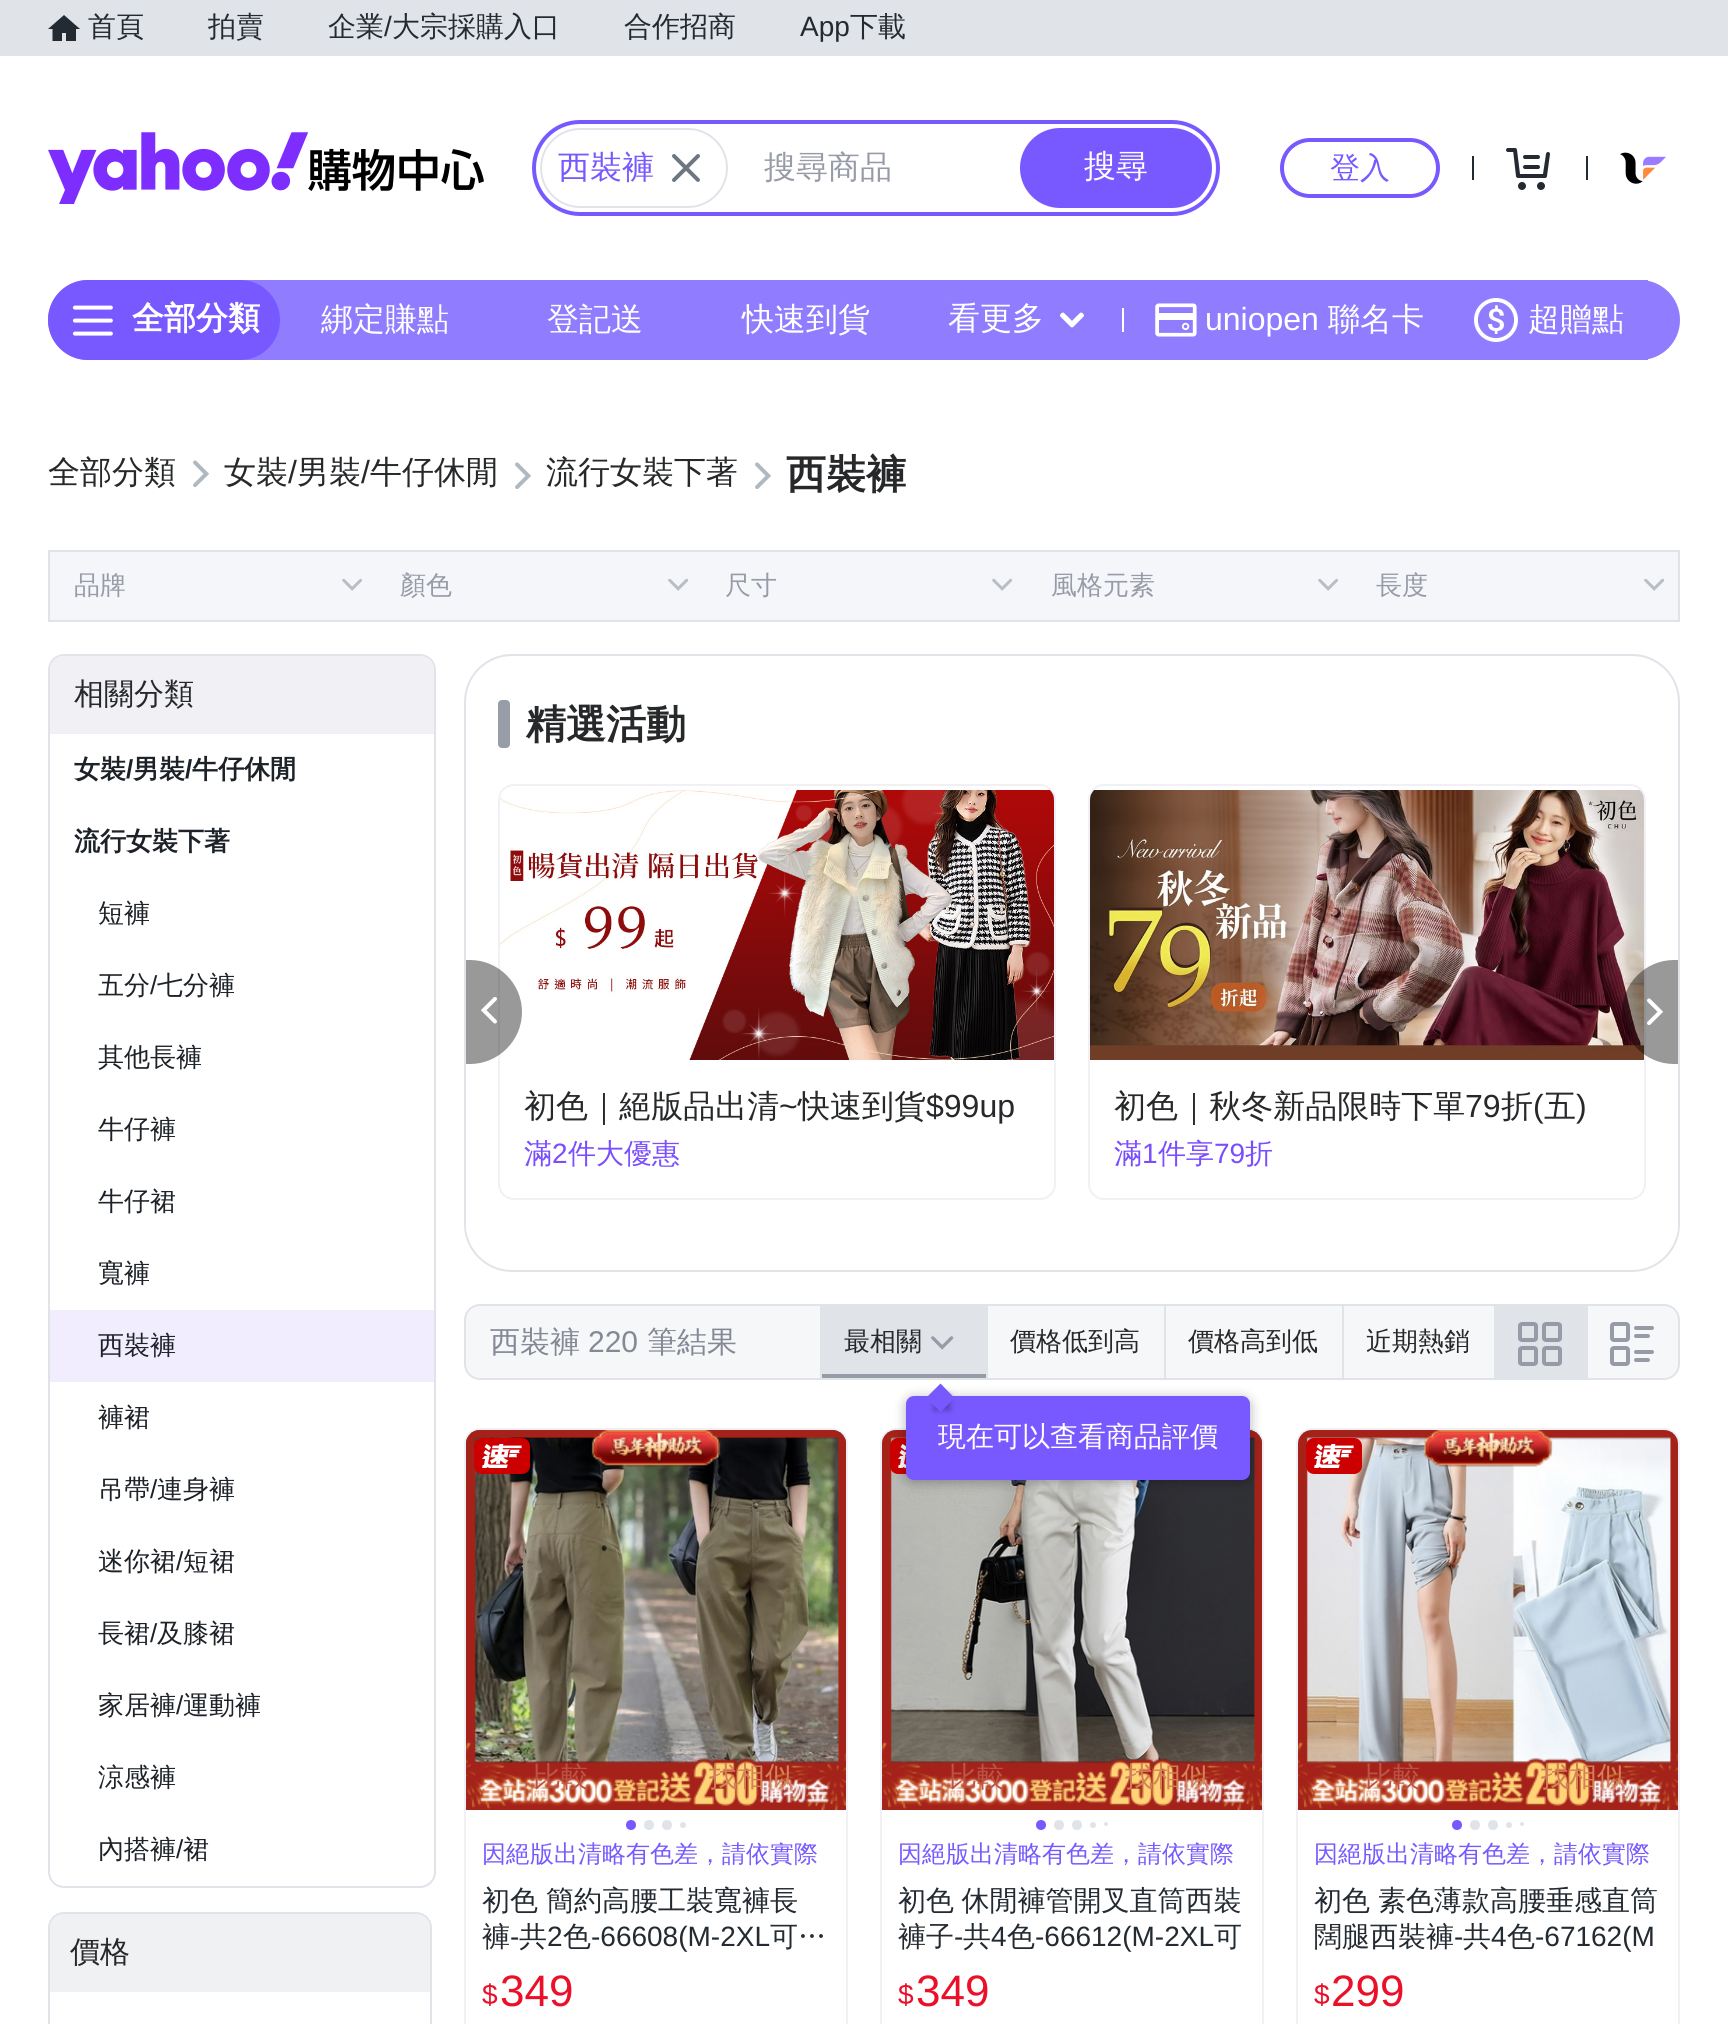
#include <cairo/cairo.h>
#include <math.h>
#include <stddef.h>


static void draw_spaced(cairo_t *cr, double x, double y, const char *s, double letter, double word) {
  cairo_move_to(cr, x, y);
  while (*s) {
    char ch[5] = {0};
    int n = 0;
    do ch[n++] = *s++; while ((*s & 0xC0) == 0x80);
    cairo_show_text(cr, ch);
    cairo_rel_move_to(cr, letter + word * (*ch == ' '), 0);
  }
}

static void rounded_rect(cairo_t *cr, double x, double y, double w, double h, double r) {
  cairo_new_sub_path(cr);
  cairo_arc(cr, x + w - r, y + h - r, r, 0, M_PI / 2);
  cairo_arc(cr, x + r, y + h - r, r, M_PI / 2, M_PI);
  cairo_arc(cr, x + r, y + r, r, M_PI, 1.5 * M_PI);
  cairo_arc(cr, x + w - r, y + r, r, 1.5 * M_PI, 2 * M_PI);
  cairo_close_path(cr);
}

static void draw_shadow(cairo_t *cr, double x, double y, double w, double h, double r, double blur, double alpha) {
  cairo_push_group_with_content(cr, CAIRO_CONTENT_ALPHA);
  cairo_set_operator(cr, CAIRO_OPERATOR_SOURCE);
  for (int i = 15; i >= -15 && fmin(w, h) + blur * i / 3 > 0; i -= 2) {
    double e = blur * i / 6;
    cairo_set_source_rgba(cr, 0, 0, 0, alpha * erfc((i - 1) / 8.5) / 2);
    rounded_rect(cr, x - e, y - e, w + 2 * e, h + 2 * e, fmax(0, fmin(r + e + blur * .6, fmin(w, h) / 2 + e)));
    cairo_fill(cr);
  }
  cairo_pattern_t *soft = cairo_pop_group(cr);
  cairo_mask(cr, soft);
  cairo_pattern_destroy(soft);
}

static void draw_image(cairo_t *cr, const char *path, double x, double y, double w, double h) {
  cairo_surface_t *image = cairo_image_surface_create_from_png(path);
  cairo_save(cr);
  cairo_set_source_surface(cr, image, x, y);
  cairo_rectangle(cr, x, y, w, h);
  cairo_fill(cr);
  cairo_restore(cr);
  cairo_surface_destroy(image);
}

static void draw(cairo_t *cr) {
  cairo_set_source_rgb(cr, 1, 1, 1);
  cairo_paint(cr);
  cairo_set_source_rgb(cr, 224 / 255.0, 228 / 255.0, 233 / 255.0);
  cairo_rectangle(cr, 0, 0, 1728, 56);
  cairo_fill(cr);
  cairo_set_source_rgb(cr, 35 / 255.0, 42 / 255.0, 49 / 255.0);
  cairo_new_path(cr);
  cairo_move_to(cr, 64, 15);
  cairo_line_to(cr, 48, 29);
  cairo_line_to(cr, 52.5, 29);
  cairo_line_to(cr, 52.5, 41);
  cairo_line_to(cr, 62, 41);
  cairo_line_to(cr, 62, 33);
  cairo_line_to(cr, 66, 33);
  cairo_line_to(cr, 66, 41);
  cairo_line_to(cr, 76, 41);
  cairo_line_to(cr, 76, 29);
  cairo_line_to(cr, 80, 29);
  cairo_fill(cr);
  draw_image(cr, "images/1.png", 48, 132, 436, 72);
  rounded_rect(cr, 534, 122, 684, 92, 46);
  cairo_set_source_rgb(cr, 119 / 255.0, 89 / 255.0, 1);
  cairo_set_line_width(cr, 4);
  cairo_stroke(cr);
  rounded_rect(cr, 541, 129, 186, 78, 39);
  cairo_set_source_rgb(cr, 224 / 255.0, 228 / 255.0, 233 / 255.0);
  cairo_set_line_width(cr, 2);
  cairo_stroke(cr);
  draw_image(cr, "images/2.png", 672, 154, 28, 28);
  cairo_set_source_rgb(cr, 119 / 255.0, 89 / 255.0, 1);
  rounded_rect(cr, 1020, 128, 192, 80, 40);
  cairo_fill(cr);
  rounded_rect(cr, 1282, 140, 156, 56, 28);
  cairo_set_line_width(cr, 4);
  cairo_stroke(cr);
  cairo_set_source_rgb(cr, 35 / 255.0, 42 / 255.0, 49 / 255.0);
  cairo_rectangle(cr, 1472, 156, 2, 24);
  cairo_fill(cr);
  draw_image(cr, "images/3.png", 1506, 148, 44, 42);
  cairo_rectangle(cr, 1586, 156, 2, 24);
  cairo_fill(cr);
  draw_image(cr, "images/4.png", 1620, 152, 46, 32);
  cairo_set_source_rgb(cr, 144 / 255.0, 124 / 255.0, 1);
  rounded_rect(cr, 48, 280, 1632, 80, 40);
  cairo_fill(cr);
  cairo_set_source_rgb(cr, 119 / 255.0, 89 / 255.0, 1);
  rounded_rect(cr, 48, 280, 232, 80, 40);
  cairo_fill(cr);
  draw_image(cr, "images/5.png", 72, 305, 41, 31);
  draw_image(cr, "images/6.png", 1060, 312, 24, 16);
  cairo_set_source_rgb(cr, 1, 1, 1);
  cairo_rectangle(cr, 1122, 308, 2, 24);
  cairo_fill(cr);
  draw_image(cr, "images/7.png", 1155, 303, 42, 34);
  cairo_set_source_rgb(cr, 144 / 255.0, 124 / 255.0, 1);
  cairo_rectangle(cr, 1640, 280, 8, 80);
  cairo_fill(cr);
  draw_image(cr, "images/8.png", 1474, 298, 44, 44);
  draw_image(cr, "images/9.png", 193, 460, 16, 27);
  draw_image(cr, "images/9.png", 515, 462, 16, 27);
  draw_image(cr, "images/9.png", 755, 462, 16, 27);
  cairo_rectangle(cr, 49, 551, 1630, 70);
  cairo_set_source_rgb(cr, 224 / 255.0, 228 / 255.0, 233 / 255.0);
  cairo_set_line_width(cr, 2);
  cairo_stroke(cr);
  cairo_set_source_rgb(cr, 244 / 255.0, 246 / 255.0, 249 / 255.0);
  cairo_rectangle(cr, 50, 552, 1628, 68);
  cairo_fill(cr);
  draw_image(cr, "images/10.png", 342, 578, 21, 13);
  draw_image(cr, "images/10.png", 668, 578, 21, 13);
  draw_image(cr, "images/10.png", 992, 578, 21, 13);
  draw_image(cr, "images/10.png", 1318, 578, 21, 13);
  draw_image(cr, "images/10.png", 1644, 578, 21, 13);
  rounded_rect(cr, 49, 655, 386, 1232, 15);
  cairo_set_source_rgb(cr, 224 / 255.0, 228 / 255.0, 233 / 255.0);
  cairo_stroke(cr);
  cairo_set_source_rgb(cr, 241 / 255.0, 241 / 255.0, 245 / 255.0);
  cairo_new_path(cr);
  cairo_move_to(cr, 64, 656);
  cairo_line_to(cr, 420, 656);
  cairo_curve_to(cr, 427.5, 656, 434, 662.5, 434, 670);
  cairo_line_to(cr, 434, 734);
  cairo_line_to(cr, 50, 734);
  cairo_line_to(cr, 50, 670);
  cairo_curve_to(cr, 50, 662.5, 56.5, 656, 64, 656);
  cairo_close_path(cr);
  cairo_fill(cr);
  cairo_set_source_rgb(cr, 241 / 255.0, 237 / 255.0, 1);
  cairo_rectangle(cr, 50, 1310, 384, 72);
  cairo_fill(cr);
  rounded_rect(cr, 49, 1913, 382, 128, 15);
  cairo_set_source_rgb(cr, 224 / 255.0, 228 / 255.0, 233 / 255.0);
  cairo_stroke(cr);
  cairo_set_source_rgba(cr, 224 / 255.0, 228 / 255.0, 233 / 255.0, 0.5);
  cairo_new_path(cr);
  cairo_move_to(cr, 64, 1914);
  cairo_line_to(cr, 416, 1914);
  cairo_curve_to(cr, 423.5, 1914, 430, 1920.5, 430, 1928);
  cairo_line_to(cr, 430, 1992);
  cairo_line_to(cr, 50, 1992);
  cairo_line_to(cr, 50, 1928);
  cairo_curve_to(cr, 50, 1920.5, 56.5, 1914, 64, 1914);
  cairo_close_path(cr);
  cairo_fill(cr);
  rounded_rect(cr, 465, 655, 1214, 616, 47);
  cairo_set_source_rgb(cr, 224 / 255.0, 228 / 255.0, 233 / 255.0);
  cairo_stroke(cr);
  cairo_set_source_rgb(cr, 151 / 255.0, 158 / 255.0, 168 / 255.0);
  rounded_rect(cr, 498, 700, 12, 48, 4);
  cairo_fill(cr);
  cairo_save(cr);
  rounded_rect(cr, 466, 656, 1212, 614, 46);
  cairo_clip(cr);
  cairo_set_source_rgb(cr, 1, 1, 1);
  cairo_rectangle(cr, 466, 784, 32, 454);
  cairo_fill(cr);
  cairo_rectangle(cr, 1646, 784, 32, 454);
  cairo_fill(cr);
  cairo_restore(cr);
  rounded_rect(cr, 499, 785, 556, 414, 15);
  cairo_set_source_rgb(cr, 241 / 255.0, 241 / 255.0, 245 / 255.0);
  cairo_stroke(cr);
  draw_image(cr, "images/13.png", 500, 790, 554, 270);
  cairo_set_source_rgba(cr, 0, 0, 0, 0.4);
  cairo_new_path(cr);
  cairo_move_to(cr, 466, 960);
  cairo_line_to(cr, 470, 960);
  cairo_curve_to(cr, 498.5, 960, 522, 983.5, 522, 1012);
  cairo_curve_to(cr, 522, 1040.5, 498.5, 1064, 470, 1064);
  cairo_line_to(cr, 466, 1064);
  cairo_close_path(cr);
  cairo_fill(cr);
  draw_image(cr, "images/11.png", 481, 997, 16, 27);
  rounded_rect(cr, 1089, 785, 556, 414, 15);
  cairo_set_source_rgb(cr, 241 / 255.0, 241 / 255.0, 245 / 255.0);
  cairo_stroke(cr);
  draw_image(cr, "images/14.png", 1090, 790, 554, 270);
  cairo_set_source_rgba(cr, 0, 0, 0, 0.4);
  cairo_new_path(cr);
  cairo_move_to(cr, 1674, 960);
  cairo_line_to(cr, 1678, 960);
  cairo_line_to(cr, 1678, 1064);
  cairo_line_to(cr, 1674, 1064);
  cairo_curve_to(cr, 1645.5, 1064, 1622, 1040.5, 1622, 1012);
  cairo_curve_to(cr, 1622, 983.5, 1645.5, 960, 1674, 960);
  cairo_close_path(cr);
  cairo_fill(cr);
  draw_image(cr, "images/12.png", 1647, 998, 16, 27);
  cairo_set_source_rgb(cr, 246 / 255.0, 247 / 255.0, 249 / 255.0);
  rounded_rect(cr, 465, 1305, 1214, 74, 15);
  cairo_fill_preserve(cr);
  cairo_set_source_rgb(cr, 224 / 255.0, 228 / 255.0, 233 / 255.0);
  cairo_stroke(cr);
  cairo_rectangle(cr, 822, 1306, 164, 68);
  cairo_fill(cr);
  cairo_set_source_rgb(cr, 151 / 255.0, 155 / 255.0, 167 / 255.0);
  cairo_rectangle(cr, 820, 1374, 166, 4);
  cairo_fill(cr);
  cairo_set_source_rgb(cr, 224 / 255.0, 228 / 255.0, 233 / 255.0);
  cairo_rectangle(cr, 820, 1306, 2, 72);
  cairo_fill(cr);
  draw_image(cr, "images/15.png", 931, 1336, 23, 14);
  cairo_rectangle(cr, 986, 1306, 2, 72);
  cairo_fill(cr);
  cairo_rectangle(cr, 1164, 1306, 2, 72);
  cairo_fill(cr);
  cairo_rectangle(cr, 1342, 1306, 2, 72);
  cairo_fill(cr);
  cairo_rectangle(cr, 1494, 1306, 94, 72);
  cairo_fill(cr);
  draw_image(cr, "images/16.png", 1518, 1322, 44, 44);
  draw_image(cr, "images/17.png", 1610, 1322, 44, 44);
  rounded_rect(cr, 881, 1429, 382, 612, 15);
  cairo_set_source_rgb(cr, 241 / 255.0, 241 / 255.0, 245 / 255.0);
  cairo_stroke(cr);
  draw_image(cr, "images/21.png", 882, 1430, 380, 334);
  draw_image(cr, "images/22.png", 882, 1430, 380, 380);
  draw_image(cr, "images/23.png", 890, 1438, 17, 36);
  cairo_set_source_rgb(cr, 0, 0, 20 / 255.0);
  draw_shadow(cr, 906, 1398, 344, 84, 8, 6, 0.3);
  cairo_set_source_rgb(cr, 119 / 255.0, 89 / 255.0, 1);
  rounded_rect(cr, 906, 1396, 344, 84, 8);
  cairo_fill(cr);
  cairo_set_source_rgb(cr, 0, 0, 20 / 255.0);
  draw_shadow(cr, 934, 1394, 16, 16, 0, 3, 0.3);
  cairo_set_source_rgb(cr, 119 / 255.0, 89 / 255.0, 1);
  cairo_new_path(cr);
  cairo_move_to(cr, 940.5, 1412);
  cairo_line_to(cr, 926, 1398);
  cairo_line_to(cr, 940.5, 1383.5);
  cairo_line_to(cr, 954.5, 1398);
  cairo_close_path(cr);
  cairo_fill(cr);
  rounded_rect(cr, 465, 1429, 382, 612, 15);
  cairo_set_source_rgb(cr, 241 / 255.0, 241 / 255.0, 245 / 255.0);
  cairo_stroke(cr);
  draw_image(cr, "images/18.png", 466, 1430, 380, 334);
  cairo_set_source_rgb(cr, 119 / 255.0, 89 / 255.0, 1);
  cairo_arc(cr, 631, 1825, 5, 0, 2 * M_PI);
  cairo_fill(cr);
  cairo_set_source_rgb(cr, 224 / 255.0, 228 / 255.0, 233 / 255.0);
  cairo_arc(cr, 649, 1825, 5, 0, 2 * M_PI);
  cairo_fill(cr);
  cairo_arc(cr, 667, 1825, 5, 0, 2 * M_PI);
  cairo_fill(cr);
  cairo_arc(cr, 683, 1825, 3, 0, 2 * M_PI);
  cairo_fill(cr);
  draw_image(cr, "images/19.png", 466, 1430, 380, 380);
  draw_image(cr, "images/20.png", 474, 1438, 56, 36);
  cairo_set_source_rgb(cr, 119 / 255.0, 89 / 255.0, 1);
  cairo_arc(cr, 1041, 1825, 5, 0, 2 * M_PI);
  cairo_fill(cr);
  cairo_set_source_rgb(cr, 224 / 255.0, 228 / 255.0, 233 / 255.0);
  cairo_arc(cr, 1059, 1825, 5, 0, 2 * M_PI);
  cairo_fill(cr);
  cairo_arc(cr, 1077, 1825, 5, 0, 2 * M_PI);
  cairo_fill(cr);
  cairo_arc(cr, 1093, 1825, 3, 0, 2 * M_PI);
  cairo_fill(cr);
  cairo_arc(cr, 1106, 1824, 2, 0, 2 * M_PI);
  cairo_fill(cr);
  rounded_rect(cr, 1297, 1429, 382, 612, 15);
  cairo_set_source_rgb(cr, 241 / 255.0, 241 / 255.0, 245 / 255.0);
  cairo_stroke(cr);
  draw_image(cr, "images/24.png", 1298, 1430, 380, 334);
  cairo_set_source_rgb(cr, 119 / 255.0, 89 / 255.0, 1);
  cairo_arc(cr, 1457, 1825, 5, 0, 2 * M_PI);
  cairo_fill(cr);
  cairo_set_source_rgb(cr, 224 / 255.0, 228 / 255.0, 233 / 255.0);
  cairo_arc(cr, 1475, 1825, 5, 0, 2 * M_PI);
  cairo_fill(cr);
  cairo_arc(cr, 1493, 1825, 5, 0, 2 * M_PI);
  cairo_fill(cr);
  cairo_arc(cr, 1509, 1825, 3, 0, 2 * M_PI);
  cairo_fill(cr);
  cairo_arc(cr, 1522, 1824, 2, 0, 2 * M_PI);
  cairo_fill(cr);
  draw_image(cr, "images/25.png", 1298, 1430, 380, 380);
  draw_image(cr, "images/26.png", 1306, 1438, 56, 36);
  cairo_select_font_face(cr, "WenQuanYi Zen Hei Medium", CAIRO_FONT_SLANT_NORMAL, CAIRO_FONT_WEIGHT_NORMAL);
  cairo_set_font_size(cr, 28);
  cairo_set_source_rgb(cr, 35 / 255.0, 42 / 255.0, 49 / 255.0);
  cairo_move_to(cr, 88, 36);
  cairo_show_text(cr, "首頁");
  cairo_move_to(cr, 208, 36);
  cairo_show_text(cr, "拍賣");
  cairo_move_to(cr, 328, 36);
  cairo_show_text(cr, "企業");
  cairo_select_font_face(cr, "Liberation Sans", CAIRO_FONT_SLANT_NORMAL, CAIRO_FONT_WEIGHT_NORMAL);
  cairo_move_to(cr, 384, 36);
  cairo_show_text(cr, "/");
  cairo_select_font_face(cr, "WenQuanYi Zen Hei Medium", CAIRO_FONT_SLANT_NORMAL, CAIRO_FONT_WEIGHT_NORMAL);
  cairo_move_to(cr, 392, 36);
  cairo_show_text(cr, "大宗採購入口");
  cairo_move_to(cr, 624, 36);
  cairo_show_text(cr, "合作招商");
  cairo_select_font_face(cr, "Liberation Sans", CAIRO_FONT_SLANT_NORMAL, CAIRO_FONT_WEIGHT_NORMAL);
  cairo_move_to(cr, 800, 36);
  cairo_show_text(cr, "App");
  cairo_select_font_face(cr, "WenQuanYi Zen Hei Medium", CAIRO_FONT_SLANT_NORMAL, CAIRO_FONT_WEIGHT_NORMAL);
  cairo_move_to(cr, 850, 36);
  cairo_show_text(cr, "下載");
  cairo_set_font_size(cr, 32);
  cairo_set_source_rgb(cr, 119 / 255.0, 89 / 255.0, 1);
  cairo_move_to(cr, 558, 178);
  cairo_show_text(cr, "西裝褲");
  cairo_set_source_rgb(cr, 151 / 255.0, 155 / 255.0, 167 / 255.0);
  cairo_move_to(cr, 764, 178);
  cairo_show_text(cr, "搜尋商品");
  cairo_set_source_rgb(cr, 1, 1, 1);
  cairo_move_to(cr, 1084, 177);
  cairo_show_text(cr, "搜尋");
  cairo_set_font_size(cr, 30);
  cairo_set_source_rgb(cr, 119 / 255.0, 89 / 255.0, 1);
  cairo_move_to(cr, 1330, 178);
  cairo_show_text(cr, "登入");
  cairo_select_font_face(cr, "WenQuanYi Zen Hei", CAIRO_FONT_SLANT_NORMAL, CAIRO_FONT_WEIGHT_BOLD);
  cairo_set_font_size(cr, 32);
  cairo_set_source_rgb(cr, 1, 1, 1);
  cairo_move_to(cr, 132, 329);
  cairo_show_text(cr, "全部分類");
  cairo_select_font_face(cr, "WenQuanYi Zen Hei Medium", CAIRO_FONT_SLANT_NORMAL, CAIRO_FONT_WEIGHT_NORMAL);
  cairo_move_to(cr, 321, 330);
  cairo_show_text(cr, "綁定賺點");
  cairo_move_to(cr, 547, 330);
  cairo_show_text(cr, "登記送");
  cairo_move_to(cr, 742, 330);
  cairo_show_text(cr, "快速到貨");
  cairo_move_to(cr, 948, 329);
  cairo_show_text(cr, "看更多");
  cairo_select_font_face(cr, "Liberation Sans", CAIRO_FONT_SLANT_NORMAL, CAIRO_FONT_WEIGHT_NORMAL);
  cairo_move_to(cr, 1205, 330);
  cairo_show_text(cr, "uniopen");
  cairo_select_font_face(cr, "WenQuanYi Zen Hei Medium", CAIRO_FONT_SLANT_NORMAL, CAIRO_FONT_WEIGHT_NORMAL);
  cairo_move_to(cr, 1328, 330);
  cairo_show_text(cr, "聯名卡");
  cairo_move_to(cr, 1528, 330);
  cairo_show_text(cr, "超贈點");
  cairo_set_source_rgb(cr, 38 / 255.0, 40 / 255.0, 42 / 255.0);
  cairo_move_to(cr, 48, 483);
  cairo_show_text(cr, "全部分類");
  cairo_move_to(cr, 224, 483);
  cairo_show_text(cr, "女裝");
  cairo_select_font_face(cr, "Liberation Sans", CAIRO_FONT_SLANT_NORMAL, CAIRO_FONT_WEIGHT_NORMAL);
  cairo_move_to(cr, 288, 483);
  cairo_show_text(cr, "/");
  cairo_select_font_face(cr, "WenQuanYi Zen Hei Medium", CAIRO_FONT_SLANT_NORMAL, CAIRO_FONT_WEIGHT_NORMAL);
  cairo_move_to(cr, 297, 483);
  cairo_show_text(cr, "男裝");
  cairo_select_font_face(cr, "Liberation Sans", CAIRO_FONT_SLANT_NORMAL, CAIRO_FONT_WEIGHT_NORMAL);
  cairo_move_to(cr, 361, 483);
  cairo_show_text(cr, "/");
  cairo_select_font_face(cr, "WenQuanYi Zen Hei Medium", CAIRO_FONT_SLANT_NORMAL, CAIRO_FONT_WEIGHT_NORMAL);
  cairo_move_to(cr, 370, 483);
  cairo_show_text(cr, "牛仔休閒");
  cairo_move_to(cr, 546, 483);
  cairo_show_text(cr, "流行女裝下著");
  cairo_select_font_face(cr, "WenQuanYi Zen Hei", CAIRO_FONT_SLANT_NORMAL, CAIRO_FONT_WEIGHT_BOLD);
  cairo_set_font_size(cr, 40);
  cairo_move_to(cr, 786, 488);
  cairo_show_text(cr, "西裝褲");
  cairo_select_font_face(cr, "WenQuanYi Zen Hei Medium", CAIRO_FONT_SLANT_NORMAL, CAIRO_FONT_WEIGHT_NORMAL);
  cairo_set_font_size(cr, 26);
  cairo_set_source_rgb(cr, 151 / 255.0, 155 / 255.0, 167 / 255.0);
  cairo_move_to(cr, 74, 594);
  cairo_show_text(cr, "品牌");
  cairo_move_to(cr, 400, 594);
  cairo_show_text(cr, "顏色");
  cairo_move_to(cr, 725, 594);
  cairo_show_text(cr, "尺寸");
  cairo_move_to(cr, 1051, 594);
  cairo_show_text(cr, "風格元素");
  cairo_move_to(cr, 1376, 594);
  cairo_show_text(cr, "長度");
  cairo_set_font_size(cr, 30);
  cairo_set_source_rgb(cr, 38 / 255.0, 40 / 255.0, 42 / 255.0);
  cairo_move_to(cr, 74, 704);
  cairo_show_text(cr, "相關分類");
  cairo_select_font_face(cr, "WenQuanYi Zen Hei", CAIRO_FONT_SLANT_NORMAL, CAIRO_FONT_WEIGHT_BOLD);
  cairo_set_font_size(cr, 26);
  cairo_set_source_rgb(cr, 29 / 255.0, 34 / 255.0, 40 / 255.0);
  cairo_move_to(cr, 74, 778);
  cairo_show_text(cr, "女裝");
  cairo_select_font_face(cr, "Liberation Sans", CAIRO_FONT_SLANT_NORMAL, CAIRO_FONT_WEIGHT_BOLD);
  cairo_move_to(cr, 126, 778);
  cairo_show_text(cr, "/");
  cairo_select_font_face(cr, "WenQuanYi Zen Hei", CAIRO_FONT_SLANT_NORMAL, CAIRO_FONT_WEIGHT_BOLD);
  cairo_move_to(cr, 133, 778);
  cairo_show_text(cr, "男裝");
  cairo_select_font_face(cr, "Liberation Sans", CAIRO_FONT_SLANT_NORMAL, CAIRO_FONT_WEIGHT_BOLD);
  cairo_move_to(cr, 185, 778);
  cairo_show_text(cr, "/");
  cairo_select_font_face(cr, "WenQuanYi Zen Hei", CAIRO_FONT_SLANT_NORMAL, CAIRO_FONT_WEIGHT_BOLD);
  cairo_move_to(cr, 192, 778);
  cairo_show_text(cr, "牛仔休閒");
  cairo_move_to(cr, 74, 850);
  cairo_show_text(cr, "流行女裝下著");
  cairo_select_font_face(cr, "WenQuanYi Zen Hei Medium", CAIRO_FONT_SLANT_NORMAL, CAIRO_FONT_WEIGHT_NORMAL);
  cairo_move_to(cr, 98, 922);
  cairo_show_text(cr, "短褲");
  cairo_move_to(cr, 98, 994);
  cairo_show_text(cr, "五分");
  cairo_select_font_face(cr, "Liberation Sans", CAIRO_FONT_SLANT_NORMAL, CAIRO_FONT_WEIGHT_NORMAL);
  cairo_move_to(cr, 150, 994);
  cairo_show_text(cr, "/");
  cairo_select_font_face(cr, "WenQuanYi Zen Hei Medium", CAIRO_FONT_SLANT_NORMAL, CAIRO_FONT_WEIGHT_NORMAL);
  cairo_move_to(cr, 157, 994);
  cairo_show_text(cr, "七分褲");
  cairo_move_to(cr, 98, 1066);
  cairo_show_text(cr, "其他長褲");
  cairo_move_to(cr, 98, 1138);
  cairo_show_text(cr, "牛仔褲");
  cairo_move_to(cr, 98, 1210);
  cairo_show_text(cr, "牛仔裙");
  cairo_move_to(cr, 98, 1282);
  cairo_show_text(cr, "寬褲");
  cairo_move_to(cr, 98, 1354);
  cairo_show_text(cr, "西裝褲");
  cairo_move_to(cr, 98, 1426);
  cairo_show_text(cr, "褲裙");
  cairo_move_to(cr, 98, 1498);
  cairo_show_text(cr, "吊帶");
  cairo_select_font_face(cr, "Liberation Sans", CAIRO_FONT_SLANT_NORMAL, CAIRO_FONT_WEIGHT_NORMAL);
  cairo_move_to(cr, 150, 1498);
  cairo_show_text(cr, "/");
  cairo_select_font_face(cr, "WenQuanYi Zen Hei Medium", CAIRO_FONT_SLANT_NORMAL, CAIRO_FONT_WEIGHT_NORMAL);
  cairo_move_to(cr, 157, 1498);
  cairo_show_text(cr, "連身褲");
  cairo_move_to(cr, 98, 1570);
  cairo_show_text(cr, "迷你裙");
  cairo_select_font_face(cr, "Liberation Sans", CAIRO_FONT_SLANT_NORMAL, CAIRO_FONT_WEIGHT_NORMAL);
  cairo_move_to(cr, 176, 1570);
  cairo_show_text(cr, "/");
  cairo_select_font_face(cr, "WenQuanYi Zen Hei Medium", CAIRO_FONT_SLANT_NORMAL, CAIRO_FONT_WEIGHT_NORMAL);
  cairo_move_to(cr, 183, 1570);
  cairo_show_text(cr, "短裙");
  cairo_move_to(cr, 98, 1642);
  cairo_show_text(cr, "長裙");
  cairo_select_font_face(cr, "Liberation Sans", CAIRO_FONT_SLANT_NORMAL, CAIRO_FONT_WEIGHT_NORMAL);
  cairo_move_to(cr, 150, 1642);
  cairo_show_text(cr, "/");
  cairo_select_font_face(cr, "WenQuanYi Zen Hei Medium", CAIRO_FONT_SLANT_NORMAL, CAIRO_FONT_WEIGHT_NORMAL);
  cairo_move_to(cr, 157, 1642);
  cairo_show_text(cr, "及膝裙");
  cairo_move_to(cr, 98, 1714);
  cairo_show_text(cr, "家居褲");
  cairo_select_font_face(cr, "Liberation Sans", CAIRO_FONT_SLANT_NORMAL, CAIRO_FONT_WEIGHT_NORMAL);
  cairo_move_to(cr, 176, 1714);
  cairo_show_text(cr, "/");
  cairo_select_font_face(cr, "WenQuanYi Zen Hei Medium", CAIRO_FONT_SLANT_NORMAL, CAIRO_FONT_WEIGHT_NORMAL);
  cairo_move_to(cr, 183, 1714);
  cairo_show_text(cr, "運動褲");
  cairo_move_to(cr, 98, 1786);
  cairo_show_text(cr, "涼感褲");
  cairo_move_to(cr, 98, 1858);
  cairo_show_text(cr, "內搭褲");
  cairo_select_font_face(cr, "Liberation Sans", CAIRO_FONT_SLANT_NORMAL, CAIRO_FONT_WEIGHT_NORMAL);
  cairo_move_to(cr, 176, 1858);
  cairo_show_text(cr, "/");
  cairo_select_font_face(cr, "WenQuanYi Zen Hei Medium", CAIRO_FONT_SLANT_NORMAL, CAIRO_FONT_WEIGHT_NORMAL);
  cairo_move_to(cr, 183, 1858);
  cairo_show_text(cr, "裙");
  cairo_set_font_size(cr, 30);
  cairo_set_source_rgb(cr, 38 / 255.0, 40 / 255.0, 42 / 255.0);
  cairo_move_to(cr, 70, 1962);
  cairo_show_text(cr, "價格");
  cairo_select_font_face(cr, "WenQuanYi Zen Hei", CAIRO_FONT_SLANT_NORMAL, CAIRO_FONT_WEIGHT_BOLD);
  cairo_set_font_size(cr, 40);
  cairo_move_to(cr, 526, 738);
  cairo_show_text(cr, "精選活動");
  cairo_select_font_face(cr, "WenQuanYi Zen Hei Medium", CAIRO_FONT_SLANT_NORMAL, CAIRO_FONT_WEIGHT_NORMAL);
  cairo_set_font_size(cr, 32);
  cairo_move_to(cr, 524, 1117);
  cairo_show_text(cr, "初色｜絕版品出清");
  cairo_select_font_face(cr, "Liberation Sans", CAIRO_FONT_SLANT_NORMAL, CAIRO_FONT_WEIGHT_NORMAL);
  cairo_move_to(cr, 779, 1117);
  cairo_show_text(cr, "~");
  cairo_select_font_face(cr, "WenQuanYi Zen Hei Medium", CAIRO_FONT_SLANT_NORMAL, CAIRO_FONT_WEIGHT_NORMAL);
  cairo_move_to(cr, 798, 1117);
  cairo_show_text(cr, "快速到貨");
  cairo_select_font_face(cr, "Liberation Sans", CAIRO_FONT_SLANT_NORMAL, CAIRO_FONT_WEIGHT_NORMAL);
  cairo_move_to(cr, 926, 1117);
  cairo_show_text(cr, "$99up");
  cairo_select_font_face(cr, "WenQuanYi Zen Hei Medium", CAIRO_FONT_SLANT_NORMAL, CAIRO_FONT_WEIGHT_NORMAL);
  cairo_set_font_size(cr, 28);
  cairo_set_source_rgb(cr, 122 / 255.0, 77 / 255.0, 1);
  cairo_move_to(cr, 524, 1163);
  cairo_show_text(cr, "滿");
  cairo_select_font_face(cr, "Liberation Sans", CAIRO_FONT_SLANT_NORMAL, CAIRO_FONT_WEIGHT_NORMAL);
  cairo_move_to(cr, 552, 1163);
  cairo_show_text(cr, "2");
  cairo_select_font_face(cr, "WenQuanYi Zen Hei Medium", CAIRO_FONT_SLANT_NORMAL, CAIRO_FONT_WEIGHT_NORMAL);
  cairo_move_to(cr, 568, 1163);
  cairo_show_text(cr, "件大優惠");
  cairo_set_font_size(cr, 32);
  cairo_set_source_rgb(cr, 38 / 255.0, 40 / 255.0, 42 / 255.0);
  cairo_move_to(cr, 1114, 1117);
  cairo_show_text(cr, "初色｜秋冬新品限時下單");
  cairo_select_font_face(cr, "Liberation Sans", CAIRO_FONT_SLANT_NORMAL, CAIRO_FONT_WEIGHT_NORMAL);
  cairo_move_to(cr, 1465, 1117);
  cairo_show_text(cr, "79");
  cairo_select_font_face(cr, "WenQuanYi Zen Hei Medium", CAIRO_FONT_SLANT_NORMAL, CAIRO_FONT_WEIGHT_NORMAL);
  cairo_move_to(cr, 1501, 1117);
  cairo_show_text(cr, "折");
  cairo_select_font_face(cr, "Liberation Sans", CAIRO_FONT_SLANT_NORMAL, CAIRO_FONT_WEIGHT_NORMAL);
  cairo_move_to(cr, 1533, 1117);
  cairo_show_text(cr, "(");
  cairo_select_font_face(cr, "WenQuanYi Zen Hei Medium", CAIRO_FONT_SLANT_NORMAL, CAIRO_FONT_WEIGHT_NORMAL);
  cairo_move_to(cr, 1544, 1117);
  cairo_show_text(cr, "五");
  cairo_select_font_face(cr, "Liberation Sans", CAIRO_FONT_SLANT_NORMAL, CAIRO_FONT_WEIGHT_NORMAL);
  cairo_move_to(cr, 1576, 1117);
  cairo_show_text(cr, ")");
  cairo_select_font_face(cr, "WenQuanYi Zen Hei Medium", CAIRO_FONT_SLANT_NORMAL, CAIRO_FONT_WEIGHT_NORMAL);
  cairo_set_font_size(cr, 28);
  cairo_set_source_rgb(cr, 122 / 255.0, 77 / 255.0, 1);
  cairo_move_to(cr, 1114, 1163);
  cairo_show_text(cr, "滿");
  cairo_select_font_face(cr, "Liberation Sans", CAIRO_FONT_SLANT_NORMAL, CAIRO_FONT_WEIGHT_NORMAL);
  cairo_move_to(cr, 1142, 1163);
  cairo_show_text(cr, "1");
  cairo_select_font_face(cr, "WenQuanYi Zen Hei Medium", CAIRO_FONT_SLANT_NORMAL, CAIRO_FONT_WEIGHT_NORMAL);
  cairo_move_to(cr, 1158, 1163);
  cairo_show_text(cr, "件享");
  cairo_select_font_face(cr, "Liberation Sans", CAIRO_FONT_SLANT_NORMAL, CAIRO_FONT_WEIGHT_NORMAL);
  cairo_move_to(cr, 1214, 1163);
  cairo_show_text(cr, "79");
  cairo_select_font_face(cr, "WenQuanYi Zen Hei Medium", CAIRO_FONT_SLANT_NORMAL, CAIRO_FONT_WEIGHT_NORMAL);
  cairo_move_to(cr, 1245, 1163);
  cairo_show_text(cr, "折");
  cairo_set_font_size(cr, 30);
  cairo_set_source_rgb(cr, 133 / 255.0, 137 / 255.0, 150 / 255.0);
  cairo_move_to(cr, 490, 1352);
  cairo_show_text(cr, "西裝褲");
  cairo_select_font_face(cr, "Liberation Sans", CAIRO_FONT_SLANT_NORMAL, CAIRO_FONT_WEIGHT_NORMAL);
  cairo_move_to(cr, 588, 1352);
  cairo_show_text(cr, "220");
  cairo_select_font_face(cr, "WenQuanYi Zen Hei Medium", CAIRO_FONT_SLANT_NORMAL, CAIRO_FONT_WEIGHT_NORMAL);
  cairo_move_to(cr, 647, 1352);
  cairo_show_text(cr, "筆結果");
  cairo_set_font_size(cr, 26);
  cairo_set_source_rgb(cr, 38 / 255.0, 40 / 255.0, 42 / 255.0);
  cairo_move_to(cr, 844, 1350);
  cairo_show_text(cr, "最相關");
  cairo_move_to(cr, 1010, 1350);
  cairo_show_text(cr, "價格低到高");
  cairo_move_to(cr, 1188, 1350);
  cairo_show_text(cr, "價格高到低");
  cairo_move_to(cr, 1366, 1350);
  cairo_show_text(cr, "近期熱銷");
  cairo_set_font_size(cr, 28);
  cairo_set_source_rgb(cr, 1, 1, 1);
  cairo_move_to(cr, 938, 1446);
  cairo_show_text(cr, "現在可以查看商品評價");
  cairo_set_source_rgb(cr, 187 / 255.0, 84 / 255.0, 70 / 255.0);
  cairo_move_to(cr, 533, 1786);
  cairo_show_text(cr, "比較");
  cairo_set_source_rgb(cr, 211 / 255.0, 130 / 255.0, 86 / 255.0);
  cairo_move_to(cr, 709, 1786);
  cairo_show_text(cr, "找相似");
  cairo_set_font_size(cr, 24);
  cairo_set_source_rgb(cr, 119 / 255.0, 89 / 255.0, 1);
  cairo_move_to(cr, 482, 1862);
  cairo_show_text(cr, "因絕版出清略有色差，請依實際");
  cairo_set_font_size(cr, 28);
  cairo_set_source_rgb(cr, 35 / 255.0, 42 / 255.0, 49 / 255.0);
  cairo_move_to(cr, 482, 1910);
  cairo_show_text(cr, "初色");
  cairo_move_to(cr, 546, 1910);
  cairo_show_text(cr, "簡約高腰工裝寬褲長");
  cairo_move_to(cr, 482, 1946);
  cairo_show_text(cr, "褲");
  cairo_select_font_face(cr, "Liberation Sans", CAIRO_FONT_SLANT_NORMAL, CAIRO_FONT_WEIGHT_NORMAL);
  cairo_move_to(cr, 510, 1946);
  cairo_show_text(cr, "-");
  cairo_select_font_face(cr, "WenQuanYi Zen Hei Medium", CAIRO_FONT_SLANT_NORMAL, CAIRO_FONT_WEIGHT_NORMAL);
  cairo_move_to(cr, 519, 1946);
  cairo_show_text(cr, "共");
  cairo_select_font_face(cr, "Liberation Sans", CAIRO_FONT_SLANT_NORMAL, CAIRO_FONT_WEIGHT_NORMAL);
  cairo_move_to(cr, 547, 1946);
  cairo_show_text(cr, "2");
  cairo_select_font_face(cr, "WenQuanYi Zen Hei Medium", CAIRO_FONT_SLANT_NORMAL, CAIRO_FONT_WEIGHT_NORMAL);
  cairo_move_to(cr, 563, 1946);
  cairo_show_text(cr, "色");
  cairo_select_font_face(cr, "Liberation Sans", CAIRO_FONT_SLANT_NORMAL, CAIRO_FONT_WEIGHT_NORMAL);
  cairo_move_to(cr, 591, 1946);
  cairo_show_text(cr, "-66608(M-2XL");
  cairo_select_font_face(cr, "WenQuanYi Zen Hei Medium", CAIRO_FONT_SLANT_NORMAL, CAIRO_FONT_WEIGHT_NORMAL);
  cairo_move_to(cr, 770, 1946);
  cairo_show_text(cr, "可…");
  cairo_select_font_face(cr, "Liberation Sans", CAIRO_FONT_SLANT_NORMAL, CAIRO_FONT_WEIGHT_NORMAL);
  cairo_set_source_rgb(cr, 235 / 255.0, 15 / 255.0, 41 / 255.0);
  cairo_move_to(cr, 482, 2004);
  cairo_show_text(cr, "$");
  cairo_set_font_size(cr, 44);
  cairo_move_to(cr, 500, 2006);
  cairo_show_text(cr, "349");
  cairo_select_font_face(cr, "WenQuanYi Zen Hei Medium", CAIRO_FONT_SLANT_NORMAL, CAIRO_FONT_WEIGHT_NORMAL);
  cairo_set_font_size(cr, 28);
  cairo_set_source_rgb(cr, 187 / 255.0, 84 / 255.0, 70 / 255.0);
  cairo_move_to(cr, 949, 1786);
  cairo_show_text(cr, "比較");
  cairo_set_source_rgb(cr, 211 / 255.0, 130 / 255.0, 86 / 255.0);
  cairo_move_to(cr, 1125, 1786);
  cairo_show_text(cr, "找相似");
  cairo_set_font_size(cr, 24);
  cairo_set_source_rgb(cr, 119 / 255.0, 89 / 255.0, 1);
  cairo_move_to(cr, 898, 1862);
  cairo_show_text(cr, "因絕版出清略有色差，請依實際");
  cairo_set_font_size(cr, 28);
  cairo_set_source_rgb(cr, 35 / 255.0, 42 / 255.0, 49 / 255.0);
  draw_spaced(cr, 898, 1910, "初色 休閒褲管開叉直筒西裝", 0, -1);
  cairo_move_to(cr, 898, 1946);
  cairo_show_text(cr, "褲子");
  cairo_select_font_face(cr, "Liberation Sans", CAIRO_FONT_SLANT_NORMAL, CAIRO_FONT_WEIGHT_NORMAL);
  cairo_move_to(cr, 954, 1946);
  cairo_show_text(cr, "-");
  cairo_select_font_face(cr, "WenQuanYi Zen Hei Medium", CAIRO_FONT_SLANT_NORMAL, CAIRO_FONT_WEIGHT_NORMAL);
  cairo_move_to(cr, 963, 1946);
  cairo_show_text(cr, "共");
  cairo_select_font_face(cr, "Liberation Sans", CAIRO_FONT_SLANT_NORMAL, CAIRO_FONT_WEIGHT_NORMAL);
  cairo_move_to(cr, 991, 1946);
  cairo_show_text(cr, "4");
  cairo_select_font_face(cr, "WenQuanYi Zen Hei Medium", CAIRO_FONT_SLANT_NORMAL, CAIRO_FONT_WEIGHT_NORMAL);
  cairo_move_to(cr, 1007, 1946);
  cairo_show_text(cr, "色");
  cairo_select_font_face(cr, "Liberation Sans", CAIRO_FONT_SLANT_NORMAL, CAIRO_FONT_WEIGHT_NORMAL);
  cairo_move_to(cr, 1035, 1946);
  cairo_show_text(cr, "-66612(M-2XL");
  cairo_select_font_face(cr, "WenQuanYi Zen Hei Medium", CAIRO_FONT_SLANT_NORMAL, CAIRO_FONT_WEIGHT_NORMAL);
  cairo_move_to(cr, 1214, 1946);
  cairo_show_text(cr, "可");
  cairo_select_font_face(cr, "Liberation Sans", CAIRO_FONT_SLANT_NORMAL, CAIRO_FONT_WEIGHT_NORMAL);
  cairo_set_source_rgb(cr, 235 / 255.0, 15 / 255.0, 41 / 255.0);
  cairo_move_to(cr, 898, 2004);
  cairo_show_text(cr, "$");
  cairo_set_font_size(cr, 44);
  cairo_move_to(cr, 916, 2006);
  cairo_show_text(cr, "349");
  cairo_select_font_face(cr, "WenQuanYi Zen Hei Medium", CAIRO_FONT_SLANT_NORMAL, CAIRO_FONT_WEIGHT_NORMAL);
  cairo_set_font_size(cr, 28);
  cairo_set_source_rgb(cr, 187 / 255.0, 84 / 255.0, 70 / 255.0);
  cairo_move_to(cr, 1365, 1786);
  cairo_show_text(cr, "比較");
  cairo_set_source_rgb(cr, 211 / 255.0, 130 / 255.0, 86 / 255.0);
  cairo_move_to(cr, 1541, 1786);
  cairo_show_text(cr, "找相似");
  cairo_set_font_size(cr, 24);
  cairo_set_source_rgb(cr, 119 / 255.0, 89 / 255.0, 1);
  cairo_move_to(cr, 1314, 1862);
  cairo_show_text(cr, "因絕版出清略有色差，請依實際");
  cairo_set_font_size(cr, 28);
  cairo_set_source_rgb(cr, 35 / 255.0, 42 / 255.0, 49 / 255.0);
  cairo_move_to(cr, 1314, 1910);
  cairo_show_text(cr, "初色");
  cairo_move_to(cr, 1378, 1910);
  cairo_show_text(cr, "素色薄款高腰垂感直筒");
  cairo_move_to(cr, 1314, 1946);
  cairo_show_text(cr, "闊腿西裝褲");
  cairo_select_font_face(cr, "Liberation Sans", CAIRO_FONT_SLANT_NORMAL, CAIRO_FONT_WEIGHT_NORMAL);
  cairo_move_to(cr, 1454, 1946);
  cairo_show_text(cr, "-");
  cairo_select_font_face(cr, "WenQuanYi Zen Hei Medium", CAIRO_FONT_SLANT_NORMAL, CAIRO_FONT_WEIGHT_NORMAL);
  cairo_move_to(cr, 1463, 1946);
  cairo_show_text(cr, "共");
  cairo_select_font_face(cr, "Liberation Sans", CAIRO_FONT_SLANT_NORMAL, CAIRO_FONT_WEIGHT_NORMAL);
  cairo_move_to(cr, 1491, 1946);
  cairo_show_text(cr, "4");
  cairo_select_font_face(cr, "WenQuanYi Zen Hei Medium", CAIRO_FONT_SLANT_NORMAL, CAIRO_FONT_WEIGHT_NORMAL);
  cairo_move_to(cr, 1507, 1946);
  cairo_show_text(cr, "色");
  cairo_select_font_face(cr, "Liberation Sans", CAIRO_FONT_SLANT_NORMAL, CAIRO_FONT_WEIGHT_NORMAL);
  cairo_move_to(cr, 1535, 1946);
  cairo_show_text(cr, "-67162(M");
  cairo_set_source_rgb(cr, 235 / 255.0, 15 / 255.0, 41 / 255.0);
  cairo_move_to(cr, 1314, 2004);
  cairo_show_text(cr, "$");
  cairo_set_font_size(cr, 44);
  cairo_move_to(cr, 1331, 2006);
  cairo_show_text(cr, "299");
}

int main(void) {
  cairo_surface_t *surface = cairo_image_surface_create(CAIRO_FORMAT_RGB24, 1728, 2024);
  cairo_t *cr = cairo_create(surface);
  cairo_font_options_t *options = cairo_font_options_create();
  cairo_font_options_set_hint_metrics(options, CAIRO_HINT_METRICS_OFF);
  cairo_font_options_set_hint_style(options, CAIRO_HINT_STYLE_NONE);
  cairo_set_font_options(cr, options);
  cairo_set_miter_limit(cr, 4);
  draw(cr);
  cairo_surface_write_to_png(surface, "out.png");
  cairo_font_options_destroy(options);
  cairo_destroy(cr);
  cairo_surface_destroy(surface);
  return 0;
}
